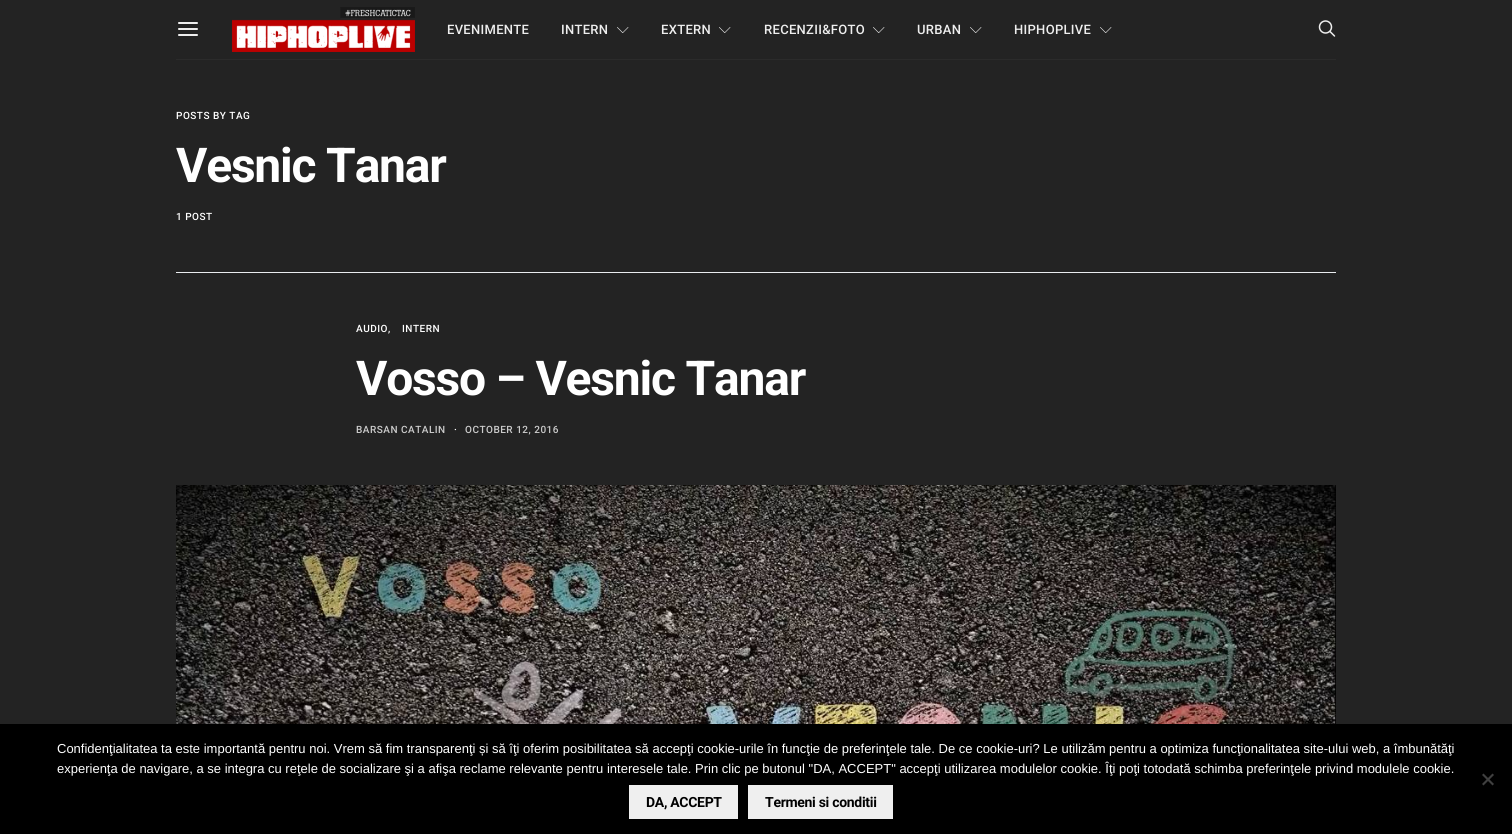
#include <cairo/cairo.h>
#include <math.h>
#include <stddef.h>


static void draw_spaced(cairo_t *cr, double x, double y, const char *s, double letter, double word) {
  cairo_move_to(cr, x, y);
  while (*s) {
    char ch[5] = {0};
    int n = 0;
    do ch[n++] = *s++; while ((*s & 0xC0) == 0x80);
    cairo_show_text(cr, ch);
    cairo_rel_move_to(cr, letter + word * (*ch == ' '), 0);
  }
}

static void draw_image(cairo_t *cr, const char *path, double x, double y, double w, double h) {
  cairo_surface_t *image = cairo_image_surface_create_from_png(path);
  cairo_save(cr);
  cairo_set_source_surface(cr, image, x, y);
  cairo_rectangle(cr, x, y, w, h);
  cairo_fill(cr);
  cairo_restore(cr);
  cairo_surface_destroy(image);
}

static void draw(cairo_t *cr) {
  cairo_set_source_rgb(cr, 35 / 255.0, 35 / 255.0, 35 / 255.0);
  cairo_paint(cr);
  cairo_set_source_rgb(cr, 43 / 255.0, 43 / 255.0, 43 / 255.0);
  cairo_rectangle(cr, 176, 59, 1160, 1);
  cairo_fill(cr);
  draw_image(cr, "images/1.png", 178, 22, 20, 14);
  draw_image(cr, "images/2.png", 232, 7, 183, 45);
  draw_image(cr, "images/3.png", 617, 27, 12, 6);
  draw_image(cr, "images/3.png", 719, 27, 12, 6);
  draw_image(cr, "images/3.png", 873, 27, 12, 6);
  draw_image(cr, "images/3.png", 970, 27, 12, 6);
  draw_image(cr, "images/3.png", 1100, 27, 12, 6);
  draw_image(cr, "images/4.png", 1318, 20, 18, 17);
  cairo_set_source_rgb(cr, 233 / 255.0, 236 / 255.0, 239 / 255.0);
  cairo_rectangle(cr, 176, 272, 1160, 1);
  cairo_fill(cr);
  draw_image(cr, "images/5.png", 176, 485, 1160, 239);
  cairo_set_source_rgb(cr, 0, 0, 0);
  cairo_rectangle(cr, 0, 724, 1512, 110);
  cairo_fill(cr);
  cairo_set_source_rgb(cr, 64 / 255.0, 64 / 255.0, 64 / 255.0);
  cairo_new_path(cr);
  cairo_move_to(cr, 1492.5, 773.5);
  cairo_line_to(cr, 1494, 775);
  cairo_line_to(cr, 1483.5, 785.5);
  cairo_line_to(cr, 1482, 784);
  cairo_close_path(cr);
  cairo_fill(cr);
  cairo_new_path(cr);
  cairo_move_to(cr, 1482, 775);
  cairo_line_to(cr, 1483.5, 773.5);
  cairo_line_to(cr, 1494, 784);
  cairo_line_to(cr, 1492.5, 785.5);
  cairo_close_path(cr);
  cairo_fill(cr);
  cairo_set_source_rgb(cr, 239 / 255.0, 239 / 255.0, 239 / 255.0);
  cairo_rectangle(cr, 629, 785, 109, 34);
  cairo_fill(cr);
  cairo_rectangle(cr, 748, 785, 145, 34);
  cairo_fill(cr);
  cairo_select_font_face(cr, "Roboto Medium", CAIRO_FONT_SLANT_NORMAL, CAIRO_FONT_WEIGHT_NORMAL);
  cairo_set_font_size(cr, 13);
  cairo_set_source_rgb(cr, 238 / 255.0, 238 / 255.0, 238 / 255.0);
  draw_spaced(cr, 447, 34, "EVENIMENTE", 0.3, 0);
  draw_spaced(cr, 561, 34, "INTERN", 0.3, 0);
  draw_spaced(cr, 661, 34, "EXTERN", 0.3, 0);
  draw_spaced(cr, 764, 34, "RECENZII&FOTO", 0.3, 0);
  draw_spaced(cr, 917, 34, "URBAN", 0.3, 0);
  draw_spaced(cr, 1014, 34, "HIPHOPLIVE", 0.3, 0);
  cairo_set_font_size(cr, 10);
  cairo_set_source_rgb(cr, 1, 1, 1);
  draw_spaced(cr, 176, 119, "POSTS BY TAG", 0.5, 0);
  cairo_select_font_face(cr, "Roboto", CAIRO_FONT_SLANT_NORMAL, CAIRO_FONT_WEIGHT_BOLD);
  cairo_set_font_size(cr, 48);
  draw_spaced(cr, 176, 182, "Vesnic Tanar", -1.2, 0);
  cairo_select_font_face(cr, "Roboto Medium", CAIRO_FONT_SLANT_NORMAL, CAIRO_FONT_WEIGHT_NORMAL);
  cairo_set_font_size(cr, 10);
  draw_spaced(cr, 176, 220, "1 POST", 0.5, 0);
  draw_spaced(cr, 356, 332, "AUDIO,", 0.5, 0);
  draw_spaced(cr, 402, 332, "INTERN", 0.5, 0);
  cairo_select_font_face(cr, "Roboto", CAIRO_FONT_SLANT_NORMAL, CAIRO_FONT_WEIGHT_BOLD);
  cairo_set_font_size(cr, 48);
  draw_spaced(cr, 356, 395, "Vosso – Vesnic Tanar", -1.2, 0);
  cairo_select_font_face(cr, "Roboto Medium", CAIRO_FONT_SLANT_NORMAL, CAIRO_FONT_WEIGHT_NORMAL);
  cairo_set_font_size(cr, 10);
  cairo_set_source_rgb(cr, 204 / 255.0, 204 / 255.0, 204 / 255.0);
  draw_spaced(cr, 356, 433, "BARSAN CATALIN", 0.5, 0);
  cairo_set_source_rgb(cr, 1, 1, 1);
  draw_spaced(cr, 454, 433, "·", 0.5, 0);
  cairo_set_source_rgb(cr, 204 / 255.0, 204 / 255.0, 204 / 255.0);
  draw_spaced(cr, 465, 433, "OCTOBER 12, 2016", 0.5, 0);
  cairo_select_font_face(cr, "Liberation Sans", CAIRO_FONT_SLANT_NORMAL, CAIRO_FONT_WEIGHT_NORMAL);
  cairo_set_font_size(cr, 13);
  cairo_set_source_rgb(cr, 1, 1, 1);
  cairo_move_to(cr, 57, 753);
  cairo_show_text(cr, "Confidenţialitatea ta este importantă pentru noi. Vrem să fim transparenţi și să îţi oferim posibilitatea să accepţi cookie-urile în funcţie de preferinţele tale. De ce cookie-uri? Le utilizăm pentru a optimiza funcţionalitatea site-ului web, a îmbunătăţi");
  cairo_move_to(cr, 57, 773);
  cairo_show_text(cr, "experienţa de navigare, a se integra cu reţele de socializare şi a afişa reclame relevante pentru interesele tale. Prin clic pe butonul \"DA, ACCEPT\" accepţi utilizarea modulelor cookie. Îţi poţi totodată schimba preferinţele privind modulele cookie.");
  cairo_select_font_face(cr, "Roboto", CAIRO_FONT_SLANT_NORMAL, CAIRO_FONT_WEIGHT_BOLD);
  cairo_set_font_size(cr, 14);
  cairo_set_source_rgb(cr, 0, 0, 0);
  draw_spaced(cr, 646, 807, "DA, ACCEPT", -0.3, 0);
  draw_spaced(cr, 765, 807, "Termeni si conditii", -0.3, 0);
}

int main(void) {
  cairo_surface_t *surface = cairo_image_surface_create(CAIRO_FORMAT_RGB24, 1512, 834);
  cairo_t *cr = cairo_create(surface);
  cairo_font_options_t *options = cairo_font_options_create();
  cairo_font_options_set_hint_metrics(options, CAIRO_HINT_METRICS_OFF);
  cairo_font_options_set_hint_style(options, CAIRO_HINT_STYLE_NONE);
  cairo_set_font_options(cr, options);
  cairo_set_miter_limit(cr, 4);
  draw(cr);
  cairo_surface_write_to_png(surface, "out.png");
  cairo_font_options_destroy(options);
  cairo_destroy(cr);
  cairo_surface_destroy(surface);
  return 0;
}
